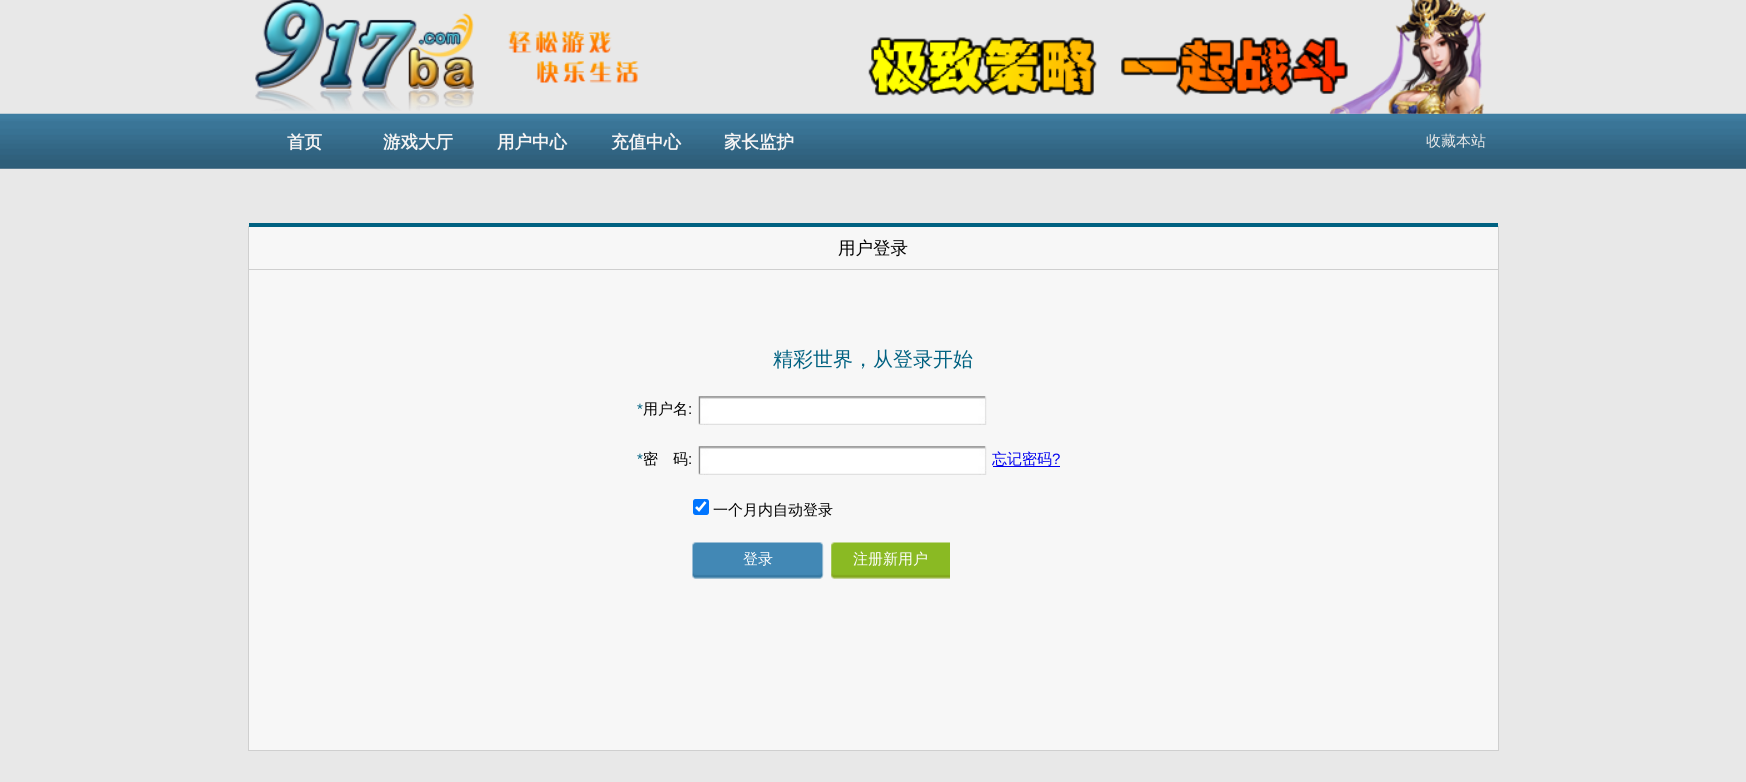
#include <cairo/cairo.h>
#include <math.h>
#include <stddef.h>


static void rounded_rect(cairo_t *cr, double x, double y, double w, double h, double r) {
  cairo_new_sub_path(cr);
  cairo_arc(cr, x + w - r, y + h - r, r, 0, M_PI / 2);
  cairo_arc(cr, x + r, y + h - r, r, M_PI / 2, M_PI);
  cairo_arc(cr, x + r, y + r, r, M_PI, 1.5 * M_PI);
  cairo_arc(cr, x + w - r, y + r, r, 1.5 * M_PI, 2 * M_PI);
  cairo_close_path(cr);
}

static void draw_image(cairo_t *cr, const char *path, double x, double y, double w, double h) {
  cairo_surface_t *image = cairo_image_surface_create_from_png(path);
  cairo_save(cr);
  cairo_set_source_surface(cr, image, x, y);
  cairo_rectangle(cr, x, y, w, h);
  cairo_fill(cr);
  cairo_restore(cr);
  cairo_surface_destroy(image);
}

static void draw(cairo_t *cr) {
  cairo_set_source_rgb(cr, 232 / 255.0, 232 / 255.0, 232 / 255.0);
  cairo_paint(cr);
  draw_image(cr, "images/1.png", 255, 0, 384, 111);
  draw_image(cr, "images/3.png", 0, 113, 1746, 56);
  draw_image(cr, "images/2.png", 868, 0, 619, 114);
  cairo_set_source_rgb(cr, 247 / 255.0, 247 / 255.0, 247 / 255.0);
  cairo_rectangle(cr, 249, 227, 1249, 42);
  cairo_fill(cr);
  cairo_set_source_rgb(cr, 0, 97 / 255.0, 129 / 255.0);
  cairo_rectangle(cr, 249, 223, 1249, 4);
  cairo_fill(cr);
  cairo_set_source_rgb(cr, 207 / 255.0, 207 / 255.0, 207 / 255.0);
  cairo_rectangle(cr, 1498, 226, 1, 44);
  cairo_fill(cr);
  cairo_rectangle(cr, 248, 226, 1, 44);
  cairo_fill(cr);
  cairo_set_source_rgb(cr, 247 / 255.0, 247 / 255.0, 247 / 255.0);
  cairo_rectangle(cr, 248.5, 269.5, 1250, 481);
  cairo_fill_preserve(cr);
  cairo_set_source_rgb(cr, 207 / 255.0, 207 / 255.0, 207 / 255.0);
  cairo_set_line_width(cr, 1);
  cairo_stroke(cr);
  draw_image(cr, "images/4.png", 698, 396, 289, 29);
  draw_image(cr, "images/4.png", 698, 446, 289, 29);
  cairo_set_source_rgb(cr, 0, 0, 238 / 255.0);
  cairo_rectangle(cr, 993, 466, 67, 1);
  cairo_fill(cr);
  cairo_set_source_rgb(cr, 0, 117 / 255.0, 1);
  rounded_rect(cr, 693, 499, 16, 16, 2.5);
  cairo_fill(cr);
  cairo_new_path(cr);
  cairo_move_to(cr, 696, 507);
  cairo_line_to(cr, 699, 510);
  cairo_line_to(cr, 705.5, 502);
  cairo_set_source_rgb(cr, 1, 1, 1);
  cairo_set_line_width(cr, 2.6);
  cairo_stroke(cr);
  draw_image(cr, "images/5.png", 692, 542, 132, 37);
  draw_image(cr, "images/6.png", 831, 542, 119, 37);
  cairo_select_font_face(cr, "WenQuanYi Zen Hei", CAIRO_FONT_SLANT_NORMAL, CAIRO_FONT_WEIGHT_BOLD);
  cairo_set_font_size(cr, 17.5);
  cairo_set_source_rgb(cr, 245 / 255.0, 244 / 255.0, 244 / 255.0);
  cairo_move_to(cr, 287, 148);
  cairo_show_text(cr, "首页");
  cairo_move_to(cr, 383, 148);
  cairo_show_text(cr, "游戏大厅");
  cairo_move_to(cr, 497, 148);
  cairo_show_text(cr, "用户中心");
  cairo_move_to(cr, 611, 148);
  cairo_show_text(cr, "充值中心");
  cairo_move_to(cr, 724, 148);
  cairo_show_text(cr, "家长监护");
  cairo_select_font_face(cr, "WenQuanYi Zen Hei Medium", CAIRO_FONT_SLANT_NORMAL, CAIRO_FONT_WEIGHT_NORMAL);
  cairo_set_font_size(cr, 15);
  cairo_set_source_rgb(cr, 232 / 255.0, 232 / 255.0, 232 / 255.0);
  cairo_move_to(cr, 1426, 146);
  cairo_show_text(cr, "收藏本站");
  cairo_set_font_size(cr, 17.5);
  cairo_set_source_rgb(cr, 0, 0, 0);
  cairo_move_to(cr, 838, 254);
  cairo_show_text(cr, "用户登录");
  cairo_set_font_size(cr, 20);
  cairo_set_source_rgb(cr, 0, 97 / 255.0, 129 / 255.0);
  cairo_move_to(cr, 773, 366);
  cairo_show_text(cr, "精彩世界，从登录开始");
  cairo_select_font_face(cr, "Liberation Sans", CAIRO_FONT_SLANT_NORMAL, CAIRO_FONT_WEIGHT_NORMAL);
  cairo_set_font_size(cr, 15);
  cairo_move_to(cr, 637, 414);
  cairo_show_text(cr, "*");
  cairo_select_font_face(cr, "WenQuanYi Zen Hei Medium", CAIRO_FONT_SLANT_NORMAL, CAIRO_FONT_WEIGHT_NORMAL);
  cairo_set_source_rgb(cr, 0, 0, 0);
  cairo_move_to(cr, 643, 414);
  cairo_show_text(cr, "用户名");
  cairo_select_font_face(cr, "Liberation Sans", CAIRO_FONT_SLANT_NORMAL, CAIRO_FONT_WEIGHT_NORMAL);
  cairo_move_to(cr, 688, 414);
  cairo_show_text(cr, ":");
  cairo_set_source_rgb(cr, 0, 97 / 255.0, 129 / 255.0);
  cairo_move_to(cr, 637, 464);
  cairo_show_text(cr, "*");
  cairo_select_font_face(cr, "WenQuanYi Zen Hei Medium", CAIRO_FONT_SLANT_NORMAL, CAIRO_FONT_WEIGHT_NORMAL);
  cairo_set_source_rgb(cr, 0, 0, 0);
  cairo_move_to(cr, 643, 464);
  cairo_show_text(cr, "密　码");
  cairo_select_font_face(cr, "Liberation Sans", CAIRO_FONT_SLANT_NORMAL, CAIRO_FONT_WEIGHT_NORMAL);
  cairo_move_to(cr, 688, 464);
  cairo_show_text(cr, ":");
  cairo_select_font_face(cr, "WenQuanYi Zen Hei Medium", CAIRO_FONT_SLANT_NORMAL, CAIRO_FONT_WEIGHT_NORMAL);
  cairo_set_source_rgb(cr, 0, 0, 238 / 255.0);
  cairo_move_to(cr, 992, 464);
  cairo_show_text(cr, "忘记密码");
  cairo_select_font_face(cr, "Liberation Sans", CAIRO_FONT_SLANT_NORMAL, CAIRO_FONT_WEIGHT_NORMAL);
  cairo_move_to(cr, 1052, 464);
  cairo_show_text(cr, "?");
  cairo_select_font_face(cr, "WenQuanYi Zen Hei Medium", CAIRO_FONT_SLANT_NORMAL, CAIRO_FONT_WEIGHT_NORMAL);
  cairo_set_source_rgb(cr, 0, 0, 0);
  cairo_move_to(cr, 713, 515);
  cairo_show_text(cr, "一个月内自动登录");
  cairo_set_source_rgb(cr, 1, 1, 1);
  cairo_move_to(cr, 743, 564);
  cairo_show_text(cr, "登录");
  cairo_move_to(cr, 853, 564);
  cairo_show_text(cr, "注册新用户");
}

int main(void) {
  cairo_surface_t *surface = cairo_image_surface_create(CAIRO_FORMAT_RGB24, 1746, 782);
  cairo_t *cr = cairo_create(surface);
  cairo_font_options_t *options = cairo_font_options_create();
  cairo_font_options_set_hint_metrics(options, CAIRO_HINT_METRICS_OFF);
  cairo_font_options_set_hint_style(options, CAIRO_HINT_STYLE_NONE);
  cairo_set_font_options(cr, options);
  cairo_set_miter_limit(cr, 4);
  draw(cr);
  cairo_surface_write_to_png(surface, "out.png");
  cairo_font_options_destroy(options);
  cairo_destroy(cr);
  cairo_surface_destroy(surface);
  return 0;
}
